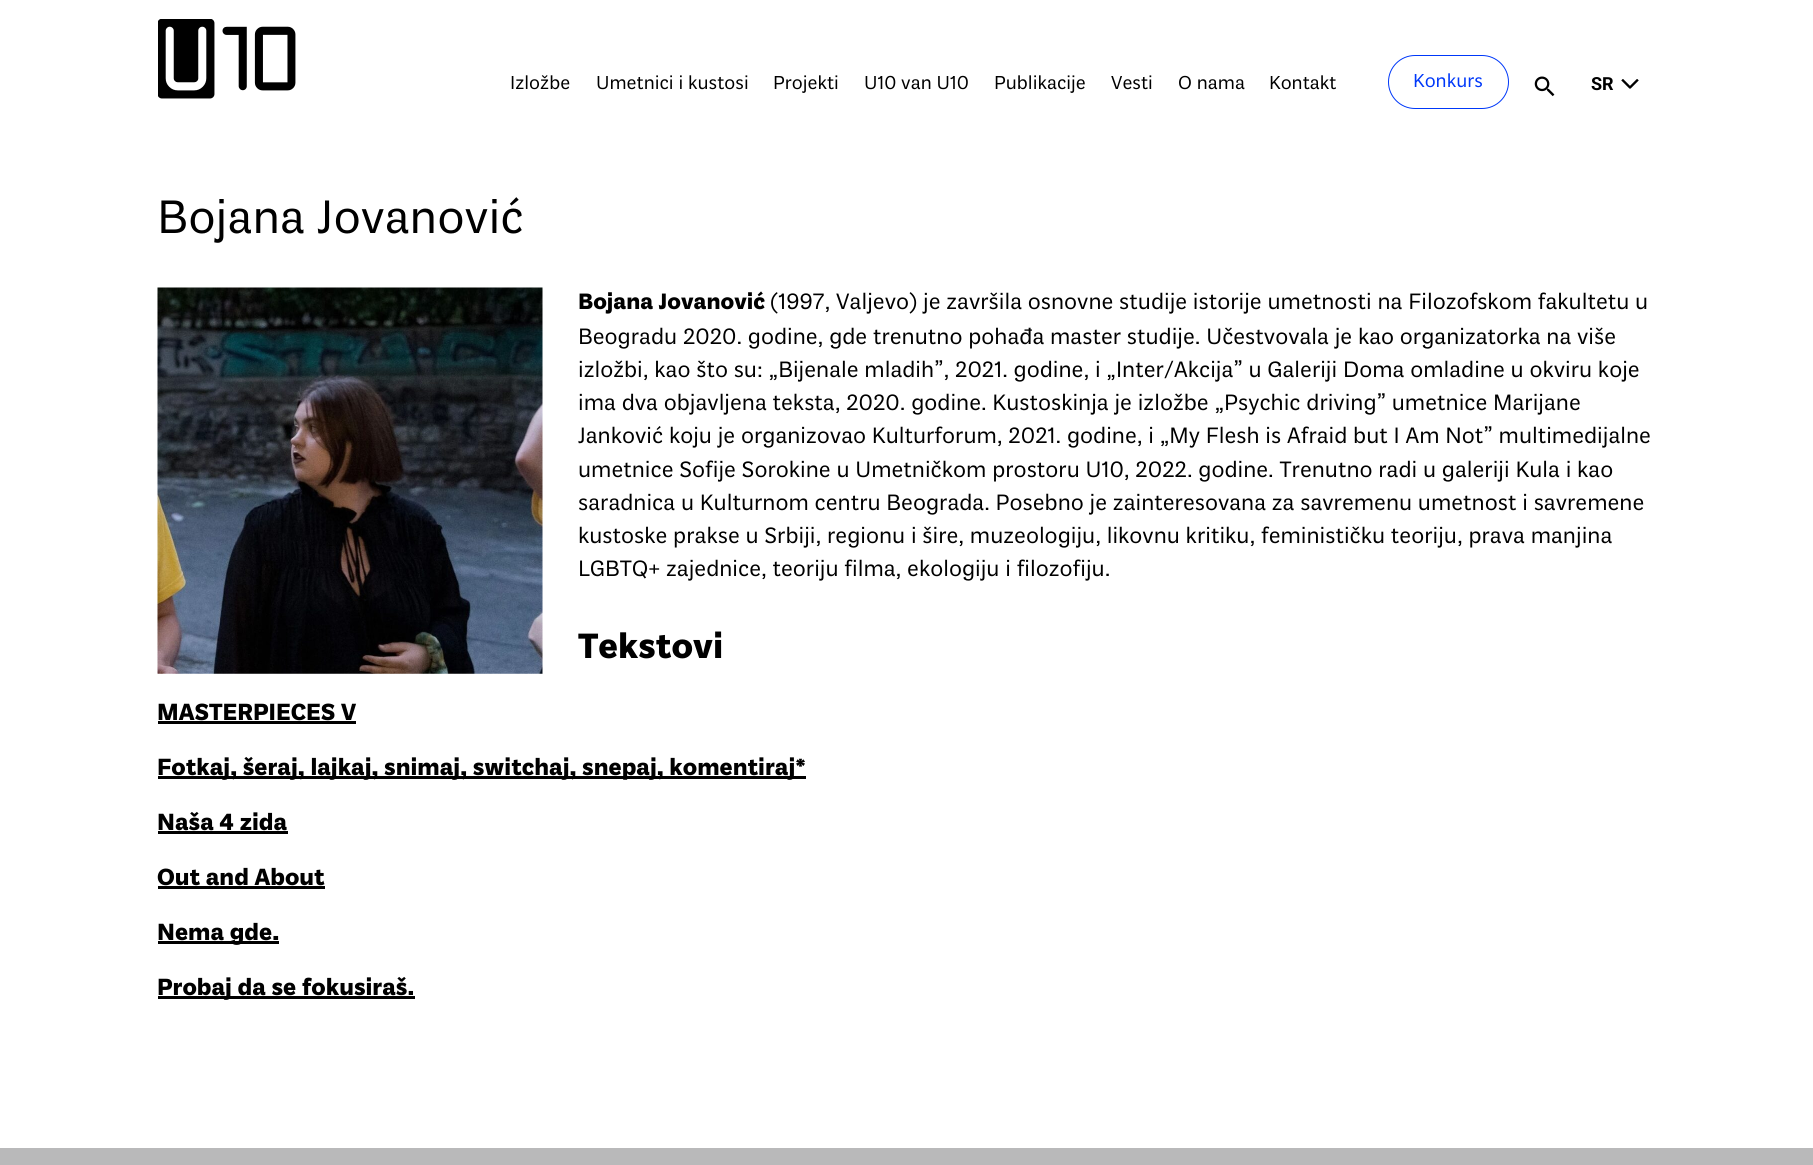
#include <cairo/cairo.h>
#include <math.h>
#include <stddef.h>


static void rounded_rect(cairo_t *cr, double x, double y, double w, double h, double r) {
  cairo_new_sub_path(cr);
  cairo_arc(cr, x + w - r, y + h - r, r, 0, M_PI / 2);
  cairo_arc(cr, x + r, y + h - r, r, M_PI / 2, M_PI);
  cairo_arc(cr, x + r, y + r, r, M_PI, 1.5 * M_PI);
  cairo_arc(cr, x + w - r, y + r, r, 1.5 * M_PI, 2 * M_PI);
  cairo_close_path(cr);
}

static void draw_image(cairo_t *cr, const char *path, double x, double y, double w, double h) {
  cairo_surface_t *image = cairo_image_surface_create_from_png(path);
  cairo_save(cr);
  cairo_set_source_surface(cr, image, x, y);
  cairo_rectangle(cr, x, y, w, h);
  cairo_fill(cr);
  cairo_restore(cr);
  cairo_surface_destroy(image);
}

static void draw(cairo_t *cr) {
  cairo_set_source_rgb(cr, 1, 1, 1);
  cairo_paint(cr);
  draw_image(cr, "images/1.png", 158, 19, 138, 80);
  rounded_rect(cr, 1388.5, 55.5, 120, 53, 26.5);
  cairo_set_source_rgb(cr, 0, 56 / 255.0, 249 / 255.0);
  cairo_set_line_width(cr, 1);
  cairo_stroke(cr);
  draw_image(cr, "images/2.png", 1534, 76, 21, 21);
  draw_image(cr, "images/3.png", 1621, 79, 18, 10);
  draw_image(cr, "images/4.png", 157, 287, 386, 387);
  cairo_set_source_rgb(cr, 0, 0, 0);
  cairo_rectangle(cr, 158, 721, 198, 3);
  cairo_fill(cr);
  cairo_rectangle(cr, 158, 776, 648, 3);
  cairo_fill(cr);
  cairo_rectangle(cr, 158, 831, 130, 3);
  cairo_fill(cr);
  cairo_rectangle(cr, 158, 886, 167, 3);
  cairo_fill(cr);
  cairo_rectangle(cr, 158, 941, 121, 3);
  cairo_fill(cr);
  cairo_rectangle(cr, 158, 996, 257, 3);
  cairo_fill(cr);
  cairo_set_source_rgb(cr, 185 / 255.0, 185 / 255.0, 186 / 255.0);
  cairo_rectangle(cr, 0, 1148, 1813, 17);
  cairo_fill(cr);
  cairo_select_font_face(cr, "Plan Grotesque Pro", CAIRO_FONT_SLANT_NORMAL, CAIRO_FONT_WEIGHT_NORMAL);
  cairo_set_font_size(cr, 20);
  cairo_set_source_rgb(cr, 0, 0, 0);
  cairo_move_to(cr, 510, 89);
  cairo_show_text(cr, "Izložbe");
  cairo_move_to(cr, 596, 89);
  cairo_show_text(cr, "Umetnici i kustosi");
  cairo_move_to(cr, 773, 89);
  cairo_show_text(cr, "Projekti");
  cairo_move_to(cr, 864, 89);
  cairo_show_text(cr, "U10 van U10");
  cairo_move_to(cr, 994, 89);
  cairo_show_text(cr, "Publikacije");
  cairo_move_to(cr, 1111, 89);
  cairo_show_text(cr, "Vesti");
  cairo_move_to(cr, 1178, 89);
  cairo_show_text(cr, "O nama");
  cairo_move_to(cr, 1269, 89);
  cairo_show_text(cr, "Kontakt");
  cairo_set_source_rgb(cr, 0, 56 / 255.0, 249 / 255.0);
  cairo_move_to(cr, 1413, 87);
  cairo_show_text(cr, "Konkurs");
  cairo_select_font_face(cr, "Roboto", CAIRO_FONT_SLANT_NORMAL, CAIRO_FONT_WEIGHT_BOLD);
  cairo_set_font_size(cr, 18);
  cairo_set_source_rgb(cr, 0, 0, 0);
  cairo_move_to(cr, 1591, 90);
  cairo_show_text(cr, "SR");
  cairo_select_font_face(cr, "Plan Grotesque Pro", CAIRO_FONT_SLANT_NORMAL, CAIRO_FONT_WEIGHT_NORMAL);
  cairo_set_font_size(cr, 50);
  cairo_move_to(cr, 157, 233);
  cairo_show_text(cr, "Bojana Jovanović");
  cairo_select_font_face(cr, "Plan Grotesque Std", CAIRO_FONT_SLANT_NORMAL, CAIRO_FONT_WEIGHT_BOLD);
  cairo_set_font_size(cr, 23.75);
  cairo_move_to(cr, 578, 309);
  cairo_show_text(cr, "Bojana Jovanović");
  cairo_select_font_face(cr, "Plan Grotesque Pro", CAIRO_FONT_SLANT_NORMAL, CAIRO_FONT_WEIGHT_NORMAL);
  cairo_move_to(cr, 770, 309);
  cairo_show_text(cr, "(1997, Valjevo) je završila osnovne studije istorije umetnosti na Filozofskom fakultetu u");
  cairo_move_to(cr, 578, 344);
  cairo_show_text(cr, "Beogradu 2020. godine, gde trenutno pohađa master studije. Učestvovala je kao organizatorka na više");
  cairo_move_to(cr, 578, 377);
  cairo_show_text(cr, "izložbi, kao što su: „Bijenale mladih”, 2021. godine, i „Inter/Akcija” u Galeriji Doma omladine u okviru koje");
  cairo_move_to(cr, 578, 410);
  cairo_show_text(cr, "ima dva objavljena teksta, 2020. godine. Kustoskinja je izložbe „Psychic driving” umetnice Marijane");
  cairo_move_to(cr, 578, 443);
  cairo_show_text(cr, "Janković koju je organizovao Kulturforum, 2021. godine, i „My Flesh is Afraid but I Am Not” multimedijalne");
  cairo_move_to(cr, 578, 477);
  cairo_show_text(cr, "umetnice Sofije Sorokine u Umetničkom prostoru U10, 2022. godine. Trenutno radi u galeriji Kula i kao");
  cairo_move_to(cr, 578, 510);
  cairo_show_text(cr, "saradnica u Kulturnom centru Beograda. Posebno je zainteresovana za savremenu umetnost i savremene");
  cairo_move_to(cr, 578, 543);
  cairo_show_text(cr, "kustoske prakse u Srbiji, regionu i šire, muzeologiju, likovnu kritiku, feminističku teoriju, prava manjina");
  cairo_move_to(cr, 578, 576);
  cairo_show_text(cr, "LGBTQ+ zajednice, teoriju filma, ekologiju i filozofiju.");
  cairo_select_font_face(cr, "Plan Grotesque Std", CAIRO_FONT_SLANT_NORMAL, CAIRO_FONT_WEIGHT_BOLD);
  cairo_set_font_size(cr, 37.5);
  cairo_move_to(cr, 578, 658);
  cairo_show_text(cr, "Tekstovi");
  cairo_set_font_size(cr, 25);
  cairo_move_to(cr, 157, 720);
  cairo_show_text(cr, "MASTERPIECES V");
  cairo_move_to(cr, 157, 775);
  cairo_show_text(cr, "Fotkaj, šeraj, lajkaj, snimaj, switchaj, snepaj, komentiraj*");
  cairo_move_to(cr, 157, 830);
  cairo_show_text(cr, "Naša 4 zida");
  cairo_move_to(cr, 157, 885);
  cairo_show_text(cr, "Out and About");
  cairo_move_to(cr, 157, 940);
  cairo_show_text(cr, "Nema gde.");
  cairo_move_to(cr, 157, 995);
  cairo_show_text(cr, "Probaj da se fokusiraš.");
}

int main(void) {
  cairo_surface_t *surface = cairo_image_surface_create(CAIRO_FORMAT_RGB24, 1813, 1165);
  cairo_t *cr = cairo_create(surface);
  cairo_font_options_t *options = cairo_font_options_create();
  cairo_font_options_set_hint_metrics(options, CAIRO_HINT_METRICS_OFF);
  cairo_font_options_set_hint_style(options, CAIRO_HINT_STYLE_NONE);
  cairo_set_font_options(cr, options);
  cairo_set_miter_limit(cr, 4);
  draw(cr);
  cairo_surface_write_to_png(surface, "out.png");
  cairo_font_options_destroy(options);
  cairo_destroy(cr);
  cairo_surface_destroy(surface);
  return 0;
}
